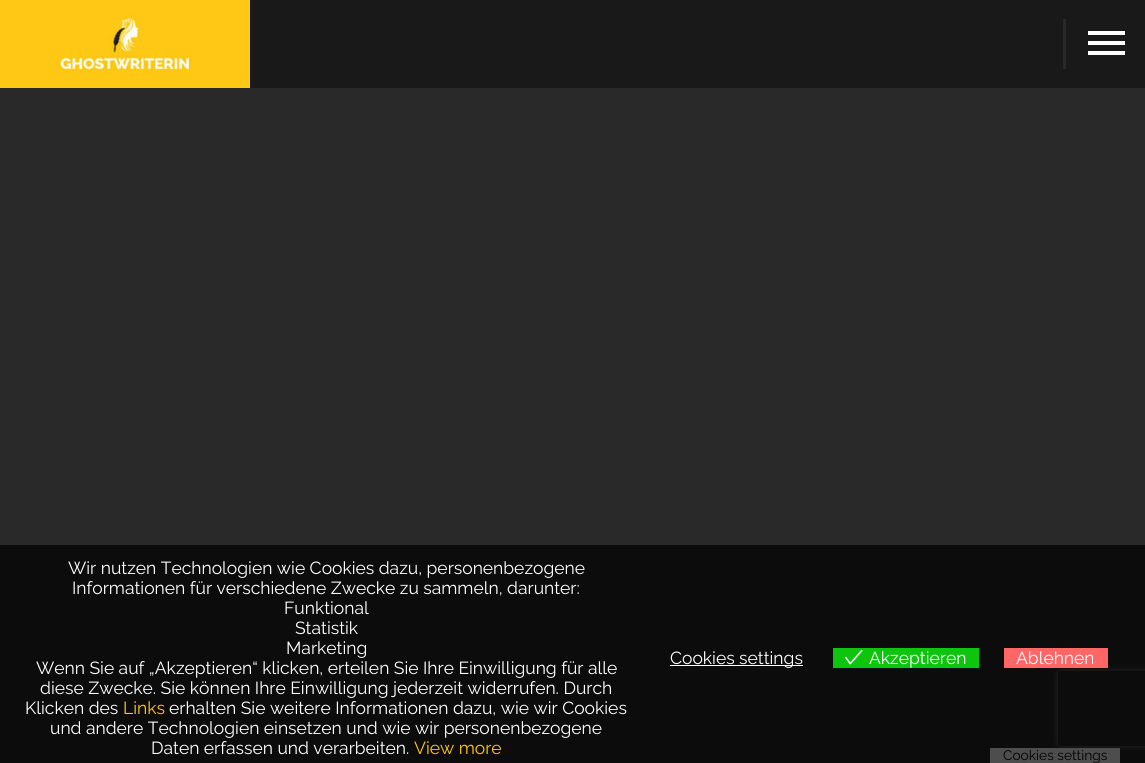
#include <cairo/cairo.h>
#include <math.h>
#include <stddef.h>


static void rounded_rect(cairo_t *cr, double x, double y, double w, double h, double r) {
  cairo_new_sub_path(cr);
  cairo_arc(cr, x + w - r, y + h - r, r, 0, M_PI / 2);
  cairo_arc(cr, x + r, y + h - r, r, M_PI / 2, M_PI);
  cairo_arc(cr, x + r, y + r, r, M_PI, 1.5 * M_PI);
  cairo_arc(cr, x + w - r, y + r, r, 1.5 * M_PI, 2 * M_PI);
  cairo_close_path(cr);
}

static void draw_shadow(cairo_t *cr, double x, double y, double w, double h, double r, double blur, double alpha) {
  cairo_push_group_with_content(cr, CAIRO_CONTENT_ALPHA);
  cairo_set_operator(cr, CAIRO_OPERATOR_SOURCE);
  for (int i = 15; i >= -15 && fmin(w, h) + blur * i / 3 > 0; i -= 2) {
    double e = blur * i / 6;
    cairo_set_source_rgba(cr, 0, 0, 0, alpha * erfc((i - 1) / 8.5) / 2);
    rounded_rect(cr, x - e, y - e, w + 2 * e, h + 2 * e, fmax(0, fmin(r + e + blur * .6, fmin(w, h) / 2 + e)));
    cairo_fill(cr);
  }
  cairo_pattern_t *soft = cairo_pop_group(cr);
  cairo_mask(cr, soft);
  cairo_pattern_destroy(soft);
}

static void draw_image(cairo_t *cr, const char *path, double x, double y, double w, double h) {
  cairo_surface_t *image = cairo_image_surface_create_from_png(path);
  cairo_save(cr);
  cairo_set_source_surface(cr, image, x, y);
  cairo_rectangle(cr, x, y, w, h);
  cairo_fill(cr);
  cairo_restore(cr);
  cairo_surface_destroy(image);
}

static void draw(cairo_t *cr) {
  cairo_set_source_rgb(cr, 41 / 255.0, 41 / 255.0, 41 / 255.0);
  cairo_paint(cr);
  cairo_set_source_rgb(cr, 12 / 255.0, 12 / 255.0, 12 / 255.0);
  cairo_rectangle(cr, 0, 545, 1145, 218);
  cairo_fill(cr);
  cairo_set_source_rgb(cr, 25 / 255.0, 25 / 255.0, 25 / 255.0);
  cairo_rectangle(cr, 250, 0, 895, 88);
  cairo_fill(cr);
  cairo_set_source_rgb(cr, 1, 200 / 255.0, 21 / 255.0);
  cairo_rectangle(cr, 0, 0, 250, 88);
  cairo_fill(cr);
  draw_image(cr, "images/1.png", 58, 13, 134, 57);
  cairo_set_source_rgb(cr, 41 / 255.0, 41 / 255.0, 41 / 255.0);
  cairo_rectangle(cr, 1063, 19, 3, 50);
  cairo_fill(cr);
  cairo_set_source_rgb(cr, 1, 1, 1);
  cairo_rectangle(cr, 1088, 31, 37, 4);
  cairo_fill(cr);
  cairo_rectangle(cr, 1088, 41, 37, 4);
  cairo_fill(cr);
  cairo_rectangle(cr, 1088, 51, 37, 4);
  cairo_fill(cr);
  cairo_rectangle(cr, 670, 665, 133, 1);
  cairo_fill(cr);
  cairo_set_source_rgb(cr, 14 / 255.0, 197 / 255.0, 14 / 255.0);
  cairo_rectangle(cr, 833, 648, 146, 20);
  cairo_fill(cr);
  draw_image(cr, "images/2.png", 845, 650, 18, 15);
  cairo_save(cr);
  cairo_set_fill_rule(cr, CAIRO_FILL_RULE_EVEN_ODD);
  cairo_new_path(cr);
  cairo_move_to(cr, 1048, 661);
  cairo_line_to(cr, 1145, 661);
  cairo_line_to(cr, 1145, 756);
  cairo_line_to(cr, 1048, 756);
  cairo_close_path(cr);
  cairo_move_to(cr, 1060.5, 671);
  cairo_line_to(cr, 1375.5, 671);
  cairo_curve_to(cr, 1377, 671, 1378, 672, 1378, 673.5);
  cairo_line_to(cr, 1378, 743.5);
  cairo_curve_to(cr, 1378, 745, 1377, 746, 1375.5, 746);
  cairo_line_to(cr, 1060.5, 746);
  cairo_curve_to(cr, 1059, 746, 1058, 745, 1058, 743.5);
  cairo_line_to(cr, 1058, 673.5);
  cairo_curve_to(cr, 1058, 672, 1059, 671, 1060.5, 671);
  cairo_close_path(cr);
  cairo_clip(cr);
  cairo_set_source_rgb(cr, 38 / 255.0, 38 / 255.0, 38 / 255.0);
  draw_shadow(cr, 1058, 671, 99, 75, 2.5, 3, 1);
  cairo_restore(cr);
  cairo_set_source_rgb(cr, 1, 102 / 255.0, 102 / 255.0);
  cairo_rectangle(cr, 1004, 648, 104, 20);
  cairo_fill(cr);
  cairo_set_source_rgb(cr, 77 / 255.0, 77 / 255.0, 77 / 255.0);
  cairo_rectangle(cr, 990, 748, 130, 15);
  cairo_fill(cr);
  cairo_select_font_face(cr, "Raleway", CAIRO_FONT_SLANT_NORMAL, CAIRO_FONT_WEIGHT_NORMAL);
  cairo_set_font_size(cr, 17.5);
  cairo_set_source_rgb(cr, 1, 1, 1);
  cairo_move_to(cr, 68, 574);
  cairo_show_text(cr, "Wir nutzen Technologien wie Cookies dazu, personenbezogene");
  cairo_move_to(cr, 72, 594);
  cairo_show_text(cr, "Informationen für verschiedene Zwecke zu sammeln, darunter:");
  cairo_move_to(cr, 284, 614);
  cairo_show_text(cr, "Funktional");
  cairo_move_to(cr, 295, 634);
  cairo_show_text(cr, "Statistik");
  cairo_move_to(cr, 286, 654);
  cairo_show_text(cr, "Marketing");
  cairo_move_to(cr, 36, 674);
  cairo_show_text(cr, "Wenn Sie auf „Akzeptieren“ klicken, erteilen Sie Ihre Einwilligung für alle");
  cairo_move_to(cr, 40, 694);
  cairo_show_text(cr, "diese Zwecke. Sie können Ihre Einwilligung jederzeit widerrufen. Durch");
  cairo_move_to(cr, 25, 714);
  cairo_show_text(cr, "Klicken des");
  cairo_set_source_rgb(cr, 1, 200 / 255.0, 21 / 255.0);
  cairo_move_to(cr, 123, 714);
  cairo_show_text(cr, "Links");
  cairo_set_source_rgb(cr, 1, 1, 1);
  cairo_move_to(cr, 169, 714);
  cairo_show_text(cr, "erhalten Sie weitere Informationen dazu, wie wir Cookies");
  cairo_move_to(cr, 50, 734);
  cairo_show_text(cr, "und andere Technologien einsetzen und wie wir personenbezogene");
  cairo_move_to(cr, 151, 754);
  cairo_show_text(cr, "Daten erfassen und verarbeiten.");
  cairo_set_source_rgb(cr, 1, 200 / 255.0, 21 / 255.0);
  cairo_move_to(cr, 414, 754);
  cairo_show_text(cr, "View more");
  cairo_set_source_rgb(cr, 1, 1, 1);
  cairo_move_to(cr, 670, 664);
  cairo_show_text(cr, "Cookies settings");
  cairo_move_to(cr, 869, 664);
  cairo_show_text(cr, "Akzeptieren");
  cairo_move_to(cr, 1016, 664);
  cairo_show_text(cr, "Ablehnen");
  cairo_set_font_size(cr, 13.75);
  cairo_set_source_rgb(cr, 0, 0, 0);
  cairo_move_to(cr, 1003, 760);
  cairo_show_text(cr, "Cookies settings");
}

int main(void) {
  cairo_surface_t *surface = cairo_image_surface_create(CAIRO_FORMAT_RGB24, 1145, 763);
  cairo_t *cr = cairo_create(surface);
  cairo_font_options_t *options = cairo_font_options_create();
  cairo_font_options_set_hint_metrics(options, CAIRO_HINT_METRICS_OFF);
  cairo_font_options_set_hint_style(options, CAIRO_HINT_STYLE_NONE);
  cairo_set_font_options(cr, options);
  cairo_set_miter_limit(cr, 4);
  draw(cr);
  cairo_surface_write_to_png(surface, "out.png");
  cairo_font_options_destroy(options);
  cairo_destroy(cr);
  cairo_surface_destroy(surface);
  return 0;
}
